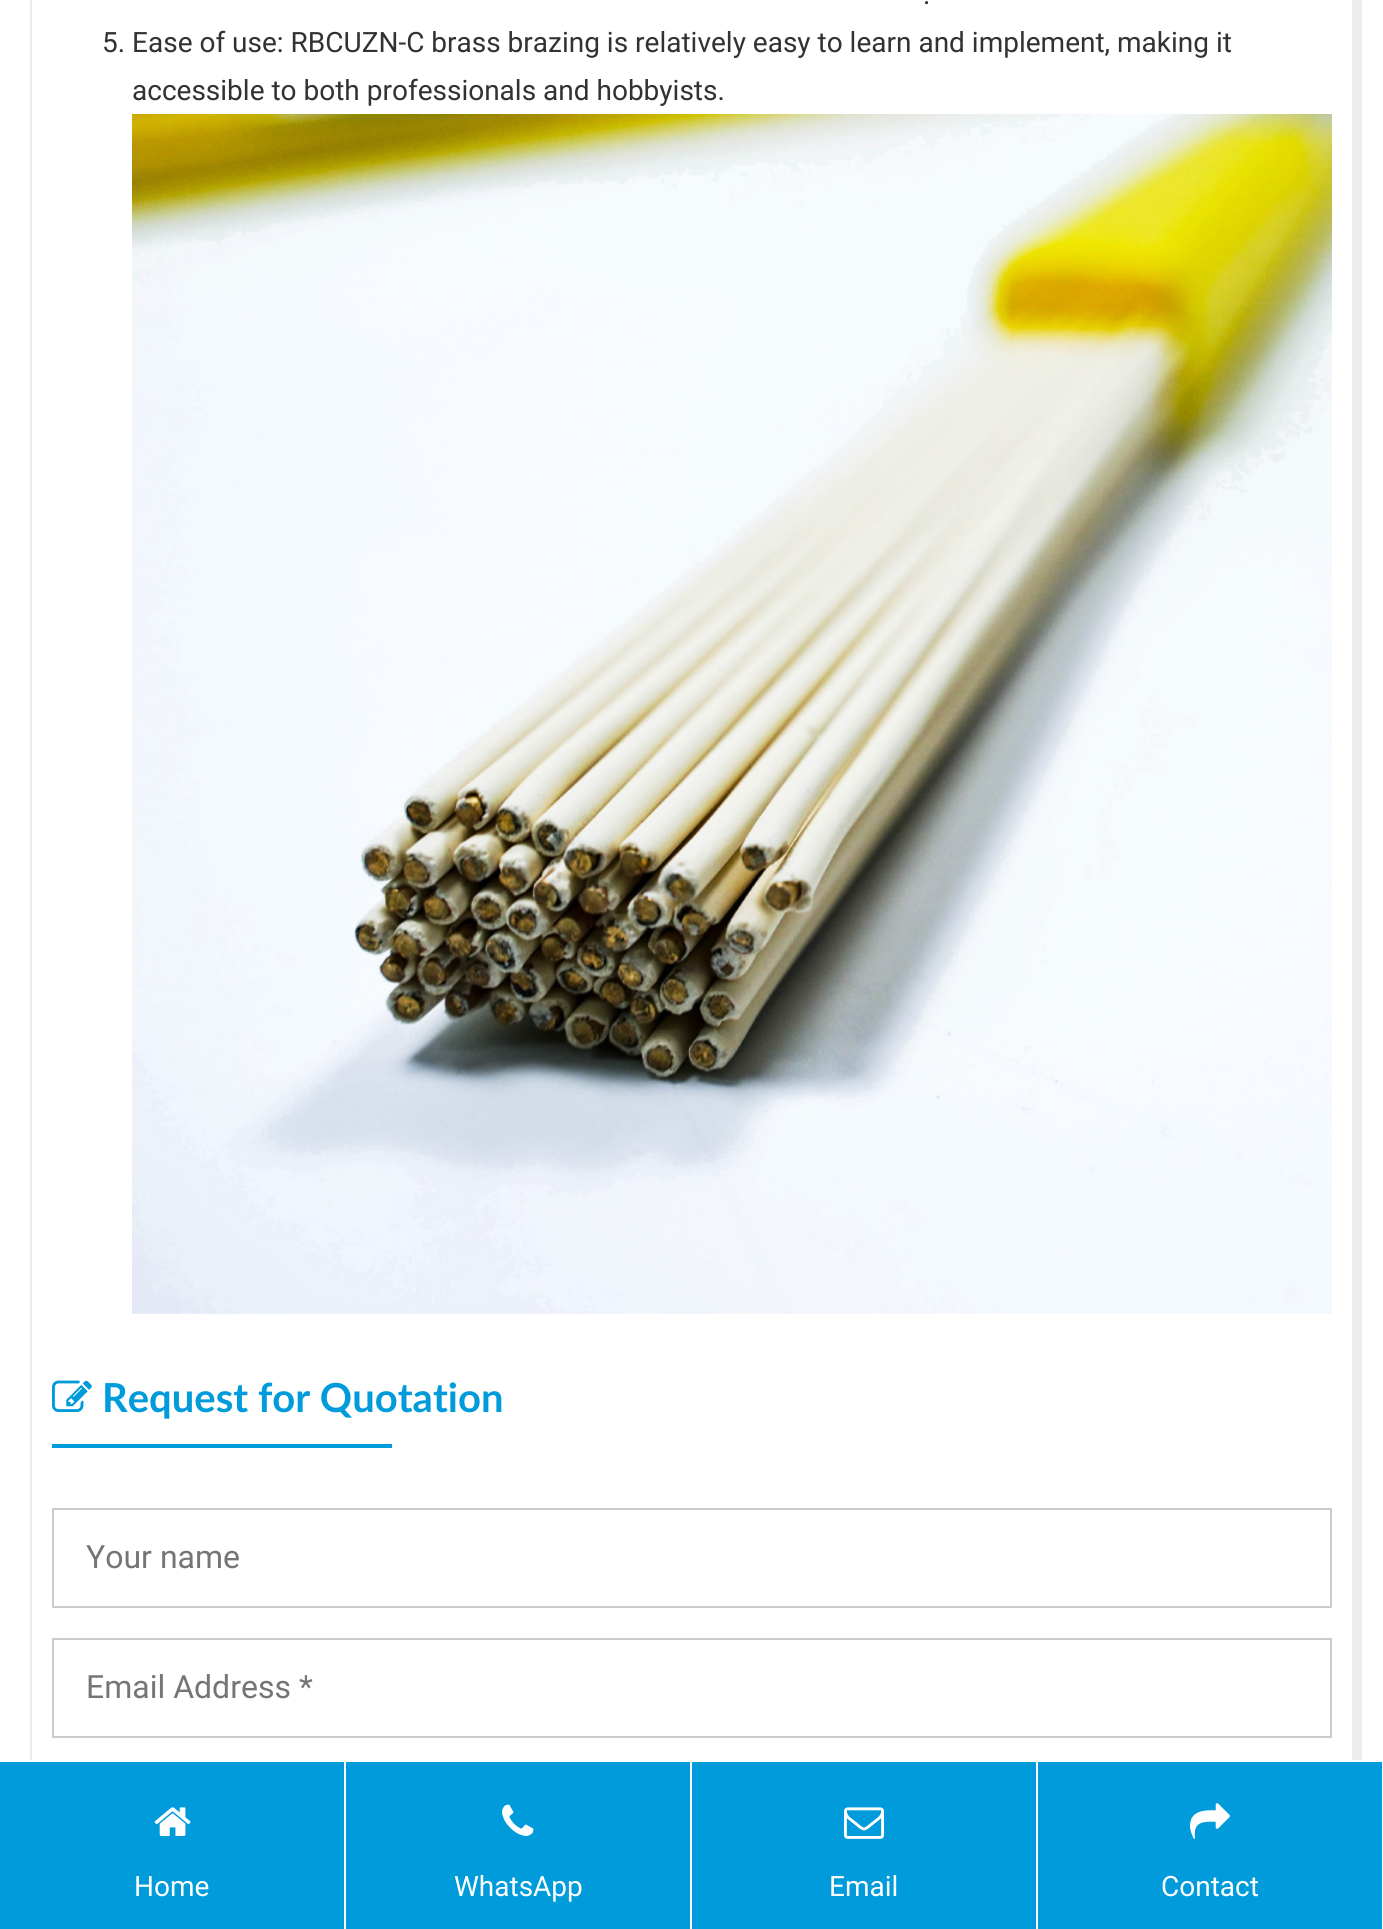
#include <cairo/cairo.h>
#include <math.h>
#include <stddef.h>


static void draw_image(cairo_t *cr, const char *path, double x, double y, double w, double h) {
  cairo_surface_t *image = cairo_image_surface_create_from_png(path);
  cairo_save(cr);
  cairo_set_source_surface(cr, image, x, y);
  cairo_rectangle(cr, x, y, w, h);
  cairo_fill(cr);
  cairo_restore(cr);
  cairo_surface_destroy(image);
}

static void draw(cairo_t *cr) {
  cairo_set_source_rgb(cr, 1, 1, 1);
  cairo_paint(cr);
  cairo_set_source_rgb(cr, 236 / 255.0, 236 / 255.0, 236 / 255.0);
  cairo_new_path(cr);
  cairo_move_to(cr, 38, 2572);
  cairo_line_to(cr, 38, 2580);
  cairo_line_to(cr, 1362, 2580);
  cairo_line_to(cr, 1362, -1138);
  cairo_line_to(cr, 1354, -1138);
  cairo_line_to(cr, 1354, 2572);
  cairo_close_path(cr);
  cairo_fill(cr);
  cairo_rectangle(cr, 31, -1, 1322, 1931);
  cairo_set_source_rgb(cr, 235 / 255.0, 235 / 255.0, 235 / 255.0);
  cairo_stroke(cr);
  draw_image(cr, "images/1.png", 132, 114, 1200, 1200);
  draw_image(cr, "images/2.png", 52, 1380, 40, 32);
  cairo_set_source_rgb(cr, 0, 155 / 255.0, 219 / 255.0);
  cairo_rectangle(cr, 52, 1444, 340, 4);
  cairo_fill(cr);
  cairo_rectangle(cr, 53, 1509, 1278, 98);
  cairo_set_source_rgb(cr, 204 / 255.0, 204 / 255.0, 204 / 255.0);
  cairo_stroke(cr);
  cairo_rectangle(cr, 53, 1639, 1278, 98);
  cairo_stroke(cr);
  cairo_set_source_rgb(cr, 0, 155 / 255.0, 219 / 255.0);
  cairo_rectangle(cr, 0, 1762, 344, 167);
  cairo_fill(cr);
  cairo_set_source_rgb(cr, 1, 1, 1);
  cairo_rectangle(cr, 30, 1760, 2, 2);
  cairo_fill(cr);
  draw_image(cr, "images/3.png", 154, 1807, 37, 29);
  cairo_set_source_rgb(cr, 0, 155 / 255.0, 219 / 255.0);
  cairo_rectangle(cr, 346, 1762, 344, 167);
  cairo_fill(cr);
  draw_image(cr, "images/4.png", 502, 1804, 32, 32);
  cairo_rectangle(cr, 692, 1762, 344, 167);
  cairo_fill(cr);
  draw_image(cr, "images/5.png", 844, 1807, 40, 32);
  cairo_rectangle(cr, 1038, 1762, 344, 167);
  cairo_fill(cr);
  cairo_set_source_rgb(cr, 1, 1, 1);
  cairo_rectangle(cr, 1352, 1760, 10, 2);
  cairo_fill(cr);
  draw_image(cr, "images/6.png", 1190, 1803, 40, 36);
  cairo_select_font_face(cr, "Roboto", CAIRO_FONT_SLANT_NORMAL, CAIRO_FONT_WEIGHT_NORMAL);
  cairo_set_font_size(cr, 28);
  cairo_set_source_rgb(cr, 50 / 255.0, 50 / 255.0, 50 / 255.0);
  cairo_move_to(cr, 923, 4);
  cairo_show_text(cr, ".");
  cairo_move_to(cr, 102, 52);
  cairo_show_text(cr, "5. Ease of use: RBCUZN-C brass brazing is relatively easy to learn and implement, making it");
  cairo_move_to(cr, 132, 100);
  cairo_show_text(cr, "accessible to both professionals and hobbyists.");
  cairo_select_font_face(cr, "Lato", CAIRO_FONT_SLANT_NORMAL, CAIRO_FONT_WEIGHT_BOLD);
  cairo_set_font_size(cr, 40);
  cairo_set_source_rgb(cr, 0, 155 / 255.0, 219 / 255.0);
  cairo_move_to(cr, 102, 1412);
  cairo_show_text(cr, "Request for Quotation");
  cairo_select_font_face(cr, "Roboto", CAIRO_FONT_SLANT_NORMAL, CAIRO_FONT_WEIGHT_NORMAL);
  cairo_set_font_size(cr, 32);
  cairo_set_source_rgb(cr, 117 / 255.0, 117 / 255.0, 117 / 255.0);
  cairo_move_to(cr, 86, 1568);
  cairo_show_text(cr, "Your name");
  cairo_move_to(cr, 86, 1698);
  cairo_show_text(cr, "Email Address *");
  cairo_set_font_size(cr, 28);
  cairo_set_source_rgb(cr, 1, 1, 1);
  cairo_move_to(cr, 134, 1896);
  cairo_show_text(cr, "Home");
  cairo_move_to(cr, 454, 1896);
  cairo_show_text(cr, "WhatsApp");
  cairo_move_to(cr, 829, 1896);
  cairo_show_text(cr, "Email");
  cairo_move_to(cr, 1161, 1896);
  cairo_show_text(cr, "Contact");
}

int main(void) {
  cairo_surface_t *surface = cairo_image_surface_create(CAIRO_FORMAT_RGB24, 1383, 1929);
  cairo_t *cr = cairo_create(surface);
  cairo_font_options_t *options = cairo_font_options_create();
  cairo_font_options_set_hint_metrics(options, CAIRO_HINT_METRICS_OFF);
  cairo_font_options_set_hint_style(options, CAIRO_HINT_STYLE_NONE);
  cairo_set_font_options(cr, options);
  cairo_set_miter_limit(cr, 4);
  draw(cr);
  cairo_surface_write_to_png(surface, "out.png");
  cairo_font_options_destroy(options);
  cairo_destroy(cr);
  cairo_surface_destroy(surface);
  return 0;
}
